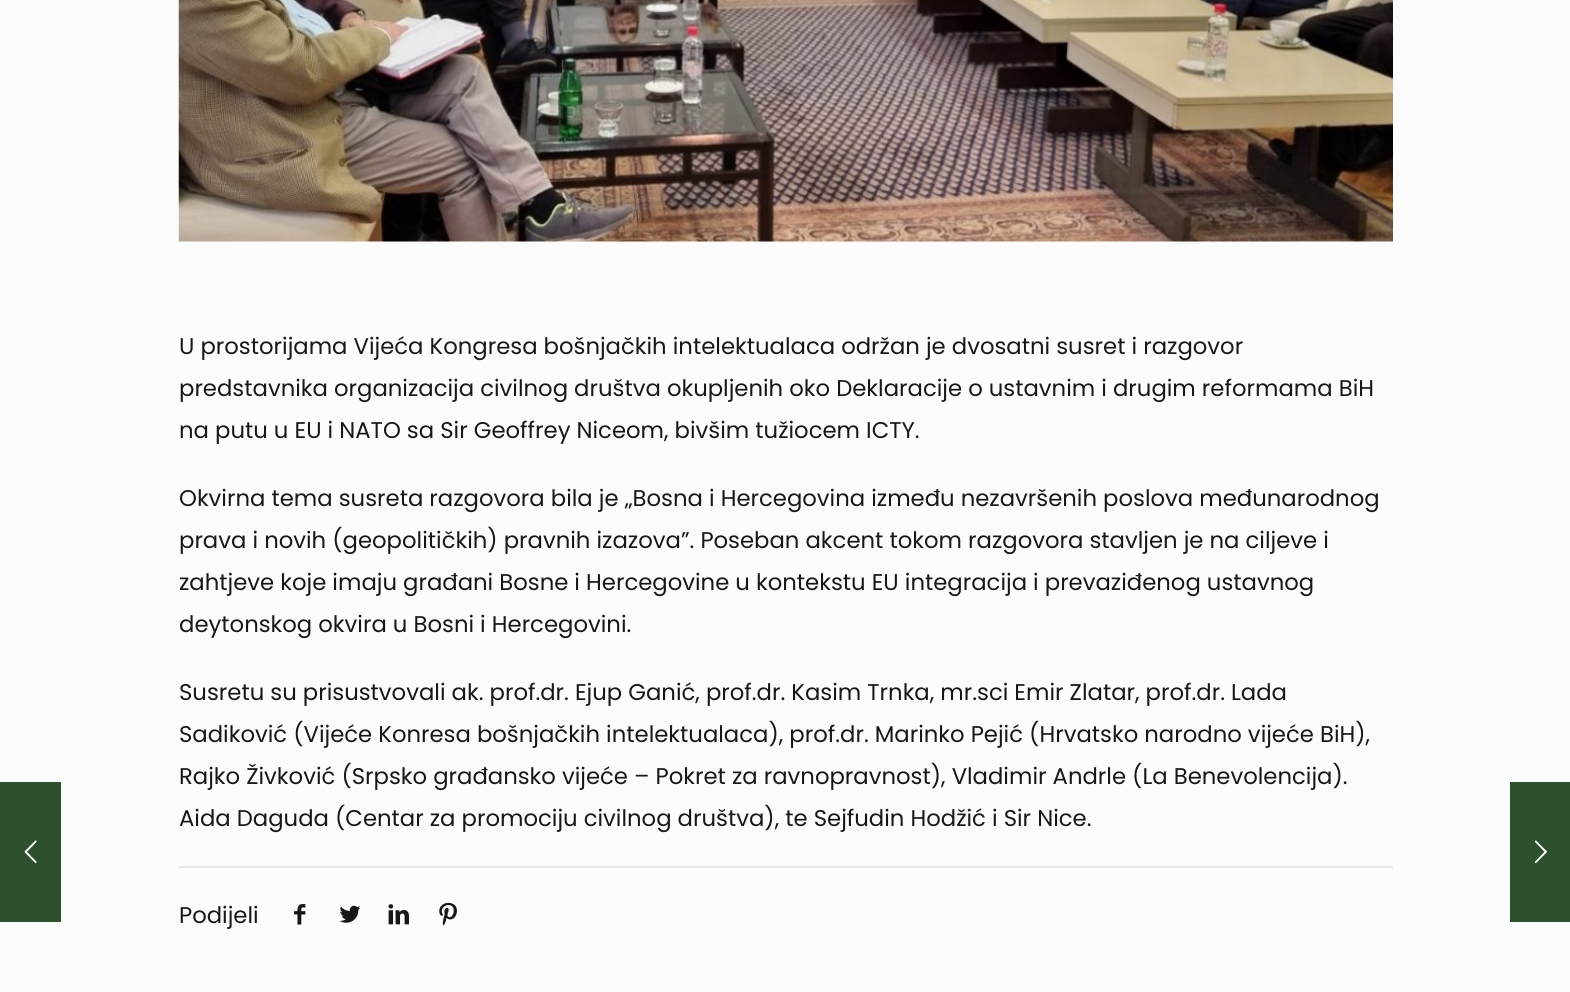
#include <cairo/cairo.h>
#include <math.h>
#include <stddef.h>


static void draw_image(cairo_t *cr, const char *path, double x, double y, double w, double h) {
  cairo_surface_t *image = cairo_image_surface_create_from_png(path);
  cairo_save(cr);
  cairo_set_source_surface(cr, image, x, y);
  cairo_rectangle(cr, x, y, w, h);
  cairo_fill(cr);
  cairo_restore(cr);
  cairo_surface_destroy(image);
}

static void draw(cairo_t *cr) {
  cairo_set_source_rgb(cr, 252 / 255.0, 252 / 255.0, 252 / 255.0);
  cairo_paint(cr);
  cairo_set_source_rgb(cr, 45 / 255.0, 80 / 255.0, 45 / 255.0);
  cairo_rectangle(cr, 0, 782, 61, 140);
  cairo_fill(cr);
  draw_image(cr, "images/1.png", 24, 840, 13, 24);
  draw_image(cr, "images/2.png", 178, 0, 1215, 242);
  cairo_set_source_rgb(cr, 232 / 255.0, 232 / 255.0, 232 / 255.0);
  cairo_rectangle(cr, 179, 866, 1214, 2);
  cairo_fill(cr);
  draw_image(cr, "images/3.png", 294, 904, 12, 21);
  draw_image(cr, "images/4.png", 339, 905, 22, 18);
  draw_image(cr, "images/5.png", 388, 904, 21, 21);
  draw_image(cr, "images/6.png", 439, 902, 18, 24);
  cairo_set_source_rgb(cr, 45 / 255.0, 80 / 255.0, 45 / 255.0);
  cairo_rectangle(cr, 1510, 782, 60, 140);
  cairo_fill(cr);
  draw_image(cr, "images/7.png", 1534, 840, 13, 24);
  cairo_select_font_face(cr, "Poppins", CAIRO_FONT_SLANT_NORMAL, CAIRO_FONT_WEIGHT_NORMAL);
  cairo_set_font_size(cr, 22.75);
  cairo_set_source_rgb(cr, 23 / 255.0, 23 / 255.0, 23 / 255.0);
  cairo_move_to(cr, 179, 354);
  cairo_show_text(cr, "U prostorijama Vijeća Kongresa bošnjačkih intelektualaca održan je dvosatni susret i razgovor");
  cairo_move_to(cr, 179, 396);
  cairo_show_text(cr, "predstavnika organizacija civilnog društva okupljenih oko Deklaracije o ustavnim i drugim reformama BiH");
  cairo_move_to(cr, 179, 438);
  cairo_show_text(cr, "na putu u EU i NATO sa Sir Geoffrey Niceom, bivšim tužiocem ICTY.");
  cairo_move_to(cr, 179, 506);
  cairo_show_text(cr, "Okvirna tema susreta razgovora bila je „Bosna i Hercegovina između nezavršenih poslova međunarodnog");
  cairo_move_to(cr, 179, 548);
  cairo_show_text(cr, "prava i novih (geopolitičkih) pravnih izazova”. Poseban akcent tokom razgovora stavljen je na ciljeve i");
  cairo_move_to(cr, 179, 590);
  cairo_show_text(cr, "zahtjeve koje imaju građani Bosne i Hercegovine u kontekstu EU integracija i prevaziđenog ustavnog");
  cairo_move_to(cr, 179, 632);
  cairo_show_text(cr, "deytonskog okvira u Bosni i Hercegovini.");
  cairo_move_to(cr, 179, 700);
  cairo_show_text(cr, "Susretu su prisustvovali ak. prof.dr. Ejup Ganić, prof.dr. Kasim Trnka, mr.sci Emir Zlatar, prof.dr. Lada");
  cairo_move_to(cr, 179, 742);
  cairo_show_text(cr, "Sadiković (Vijeće Konresa bošnjačkih intelektualaca), prof.dr. Marinko Pejić (Hrvatsko narodno vijeće BiH),");
  cairo_move_to(cr, 179, 784);
  cairo_show_text(cr, "Rajko Živković (Srpsko građansko vijeće – Pokret za ravnopravnost), Vladimir Andrle (La Benevolencija).");
  cairo_move_to(cr, 179, 826);
  cairo_show_text(cr, "Aida Daguda (Centar za promociju civilnog društva), te Sejfudin Hodžić i Sir Nice.");
  cairo_move_to(cr, 179, 923);
  cairo_show_text(cr, "Podijeli");
}

int main(void) {
  cairo_surface_t *surface = cairo_image_surface_create(CAIRO_FORMAT_RGB24, 1570, 992);
  cairo_t *cr = cairo_create(surface);
  cairo_font_options_t *options = cairo_font_options_create();
  cairo_font_options_set_hint_metrics(options, CAIRO_HINT_METRICS_OFF);
  cairo_font_options_set_hint_style(options, CAIRO_HINT_STYLE_NONE);
  cairo_set_font_options(cr, options);
  cairo_set_miter_limit(cr, 4);
  draw(cr);
  cairo_surface_write_to_png(surface, "out.png");
  cairo_font_options_destroy(options);
  cairo_destroy(cr);
  cairo_surface_destroy(surface);
  return 0;
}
